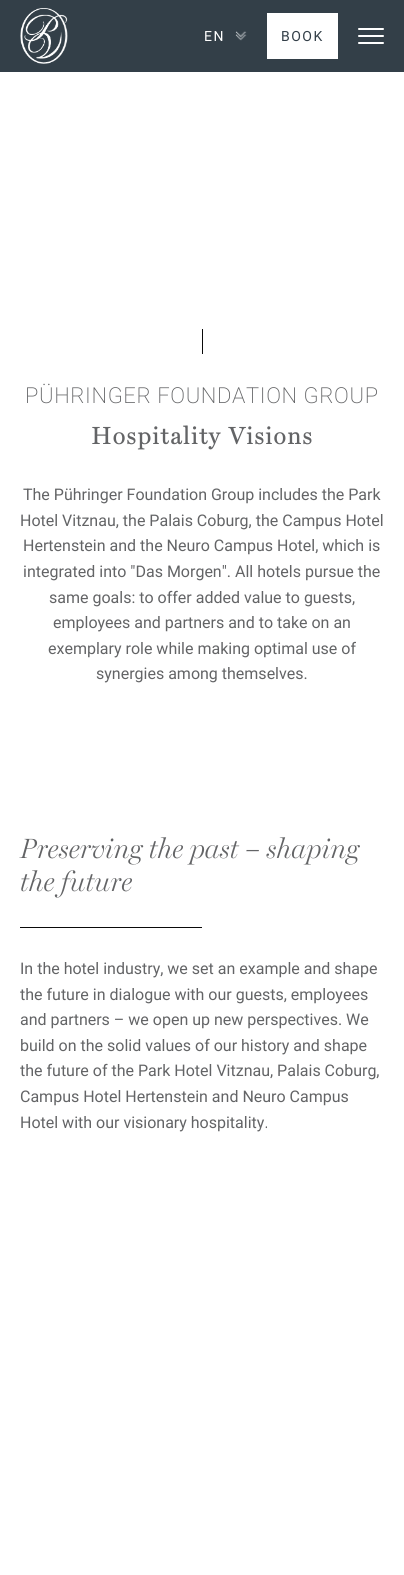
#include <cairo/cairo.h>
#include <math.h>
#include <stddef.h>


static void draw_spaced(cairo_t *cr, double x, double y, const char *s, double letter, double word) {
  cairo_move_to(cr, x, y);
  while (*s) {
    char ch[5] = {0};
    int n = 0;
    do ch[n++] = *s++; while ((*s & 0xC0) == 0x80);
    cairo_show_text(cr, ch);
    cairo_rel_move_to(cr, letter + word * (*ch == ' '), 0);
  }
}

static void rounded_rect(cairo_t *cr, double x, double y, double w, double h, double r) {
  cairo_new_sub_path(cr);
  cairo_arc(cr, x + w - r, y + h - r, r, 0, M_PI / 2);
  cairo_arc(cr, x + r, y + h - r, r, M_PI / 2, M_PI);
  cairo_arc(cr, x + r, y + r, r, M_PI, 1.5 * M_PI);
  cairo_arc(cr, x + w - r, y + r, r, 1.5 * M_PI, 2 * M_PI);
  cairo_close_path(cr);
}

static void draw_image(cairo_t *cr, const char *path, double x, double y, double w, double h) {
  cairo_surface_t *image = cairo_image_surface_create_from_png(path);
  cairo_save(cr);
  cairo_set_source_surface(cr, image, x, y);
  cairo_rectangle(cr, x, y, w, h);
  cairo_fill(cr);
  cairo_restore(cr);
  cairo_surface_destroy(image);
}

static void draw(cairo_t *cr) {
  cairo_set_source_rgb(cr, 1, 1, 1);
  cairo_paint(cr);
  cairo_set_source_rgb(cr, 51 / 255.0, 63 / 255.0, 72 / 255.0);
  cairo_rectangle(cr, 0, 0, 404, 72);
  cairo_fill(cr);
  draw_image(cr, "images/1.png", 20, 8, 48, 56);
  draw_image(cr, "images/2.png", 235, 31, 12, 10);
  cairo_set_source_rgb(cr, 1, 1, 1);
  cairo_rectangle(cr, 267, 13, 71, 46);
  cairo_fill(cr);
  rounded_rect(cr, 358, 28, 26, 2, 1);
  cairo_fill(cr);
  rounded_rect(cr, 358, 35, 26, 2, 1);
  cairo_fill(cr);
  rounded_rect(cr, 358, 42, 26, 2, 1);
  cairo_fill(cr);
  cairo_set_source_rgb(cr, 10 / 255.0, 10 / 255.0, 10 / 255.0);
  cairo_rectangle(cr, 202, 329, 1, 25);
  cairo_fill(cr);
  cairo_rectangle(cr, 20, 927, 182, 1);
  cairo_fill(cr);
  cairo_select_font_face(cr, "Roboto", CAIRO_FONT_SLANT_NORMAL, CAIRO_FONT_WEIGHT_NORMAL);
  cairo_set_font_size(cr, 14);
  cairo_set_source_rgb(cr, 1, 1, 1);
  draw_spaced(cr, 204, 41, "EN", 1.5, 0);
  cairo_set_source_rgb(cr, 51 / 255.0, 63 / 255.0, 72 / 255.0);
  draw_spaced(cr, 281, 41, "BOOK", 1.5, 0);
  cairo_select_font_face(cr, "Roboto ExtraLight", CAIRO_FONT_SLANT_NORMAL, CAIRO_FONT_WEIGHT_NORMAL);
  cairo_set_font_size(cr, 22);
  cairo_set_source_rgb(cr, 99 / 255.0, 100 / 255.0, 102 / 255.0);
  draw_spaced(cr, 25, 403, "PÜHRINGER FOUNDATION GROUP", 0.6, 0);
  cairo_select_font_face(cr, "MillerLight", CAIRO_FONT_SLANT_NORMAL, CAIRO_FONT_WEIGHT_BOLD);
  cairo_set_font_size(cr, 24);
  draw_spaced(cr, 91, 444, "Hospitality Visions", 1.7, 0);
  cairo_select_font_face(cr, "Roboto", CAIRO_FONT_SLANT_NORMAL, CAIRO_FONT_WEIGHT_NORMAL);
  cairo_set_font_size(cr, 16);
  cairo_move_to(cr, 23, 500);
  cairo_show_text(cr, "The Pühringer Foundation Group includes the Park");
  cairo_move_to(cr, 20, 526);
  cairo_show_text(cr, "Hotel Vitznau, the Palais Coburg, the Campus Hotel");
  cairo_move_to(cr, 23, 551);
  cairo_show_text(cr, "Hertenstein and the Neuro Campus Hotel, which is");
  cairo_move_to(cr, 23, 577);
  cairo_show_text(cr, "integrated into \"Das Morgen\". All hotels pursue the");
  cairo_move_to(cr, 49, 603);
  cairo_show_text(cr, "same goals: to offer added value to guests,");
  cairo_move_to(cr, 53, 628);
  cairo_show_text(cr, "employees and partners and to take on an");
  cairo_move_to(cr, 48, 654);
  cairo_show_text(cr, "exemplary role while making optimal use of");
  cairo_move_to(cr, 96, 679);
  cairo_show_text(cr, "synergies among themselves.");
  cairo_select_font_face(cr, "MillerLight Light", CAIRO_FONT_SLANT_ITALIC, CAIRO_FONT_WEIGHT_NORMAL);
  cairo_set_font_size(cr, 28);
  cairo_move_to(cr, 20, 858);
  cairo_show_text(cr, "Preserving the past – shaping");
  cairo_move_to(cr, 20, 891);
  cairo_show_text(cr, "the future");
  cairo_select_font_face(cr, "Roboto", CAIRO_FONT_SLANT_NORMAL, CAIRO_FONT_WEIGHT_NORMAL);
  cairo_set_font_size(cr, 16);
  cairo_move_to(cr, 20, 974);
  cairo_show_text(cr, "In the hotel industry, we set an example and shape");
  cairo_move_to(cr, 20, 1000);
  cairo_show_text(cr, "the future in dialogue with our guests, employees");
  cairo_move_to(cr, 20, 1025);
  cairo_show_text(cr, "and partners – we open up new perspectives. We");
  cairo_move_to(cr, 20, 1051);
  cairo_show_text(cr, "build on the solid values of our history and shape");
  cairo_move_to(cr, 20, 1076);
  cairo_show_text(cr, "the future of the Park Hotel Vitznau, Palais Coburg,");
  cairo_move_to(cr, 20, 1102);
  cairo_show_text(cr, "Campus Hotel Hertenstein and Neuro Campus");
  cairo_move_to(cr, 20, 1128);
  cairo_show_text(cr, "Hotel with our visionary hospitality.");
}

int main(void) {
  cairo_surface_t *surface = cairo_image_surface_create(CAIRO_FORMAT_RGB24, 404, 1575);
  cairo_t *cr = cairo_create(surface);
  cairo_font_options_t *options = cairo_font_options_create();
  cairo_font_options_set_hint_metrics(options, CAIRO_HINT_METRICS_OFF);
  cairo_font_options_set_hint_style(options, CAIRO_HINT_STYLE_NONE);
  cairo_set_font_options(cr, options);
  cairo_set_miter_limit(cr, 4);
  draw(cr);
  cairo_surface_write_to_png(surface, "out.png");
  cairo_font_options_destroy(options);
  cairo_destroy(cr);
  cairo_surface_destroy(surface);
  return 0;
}
